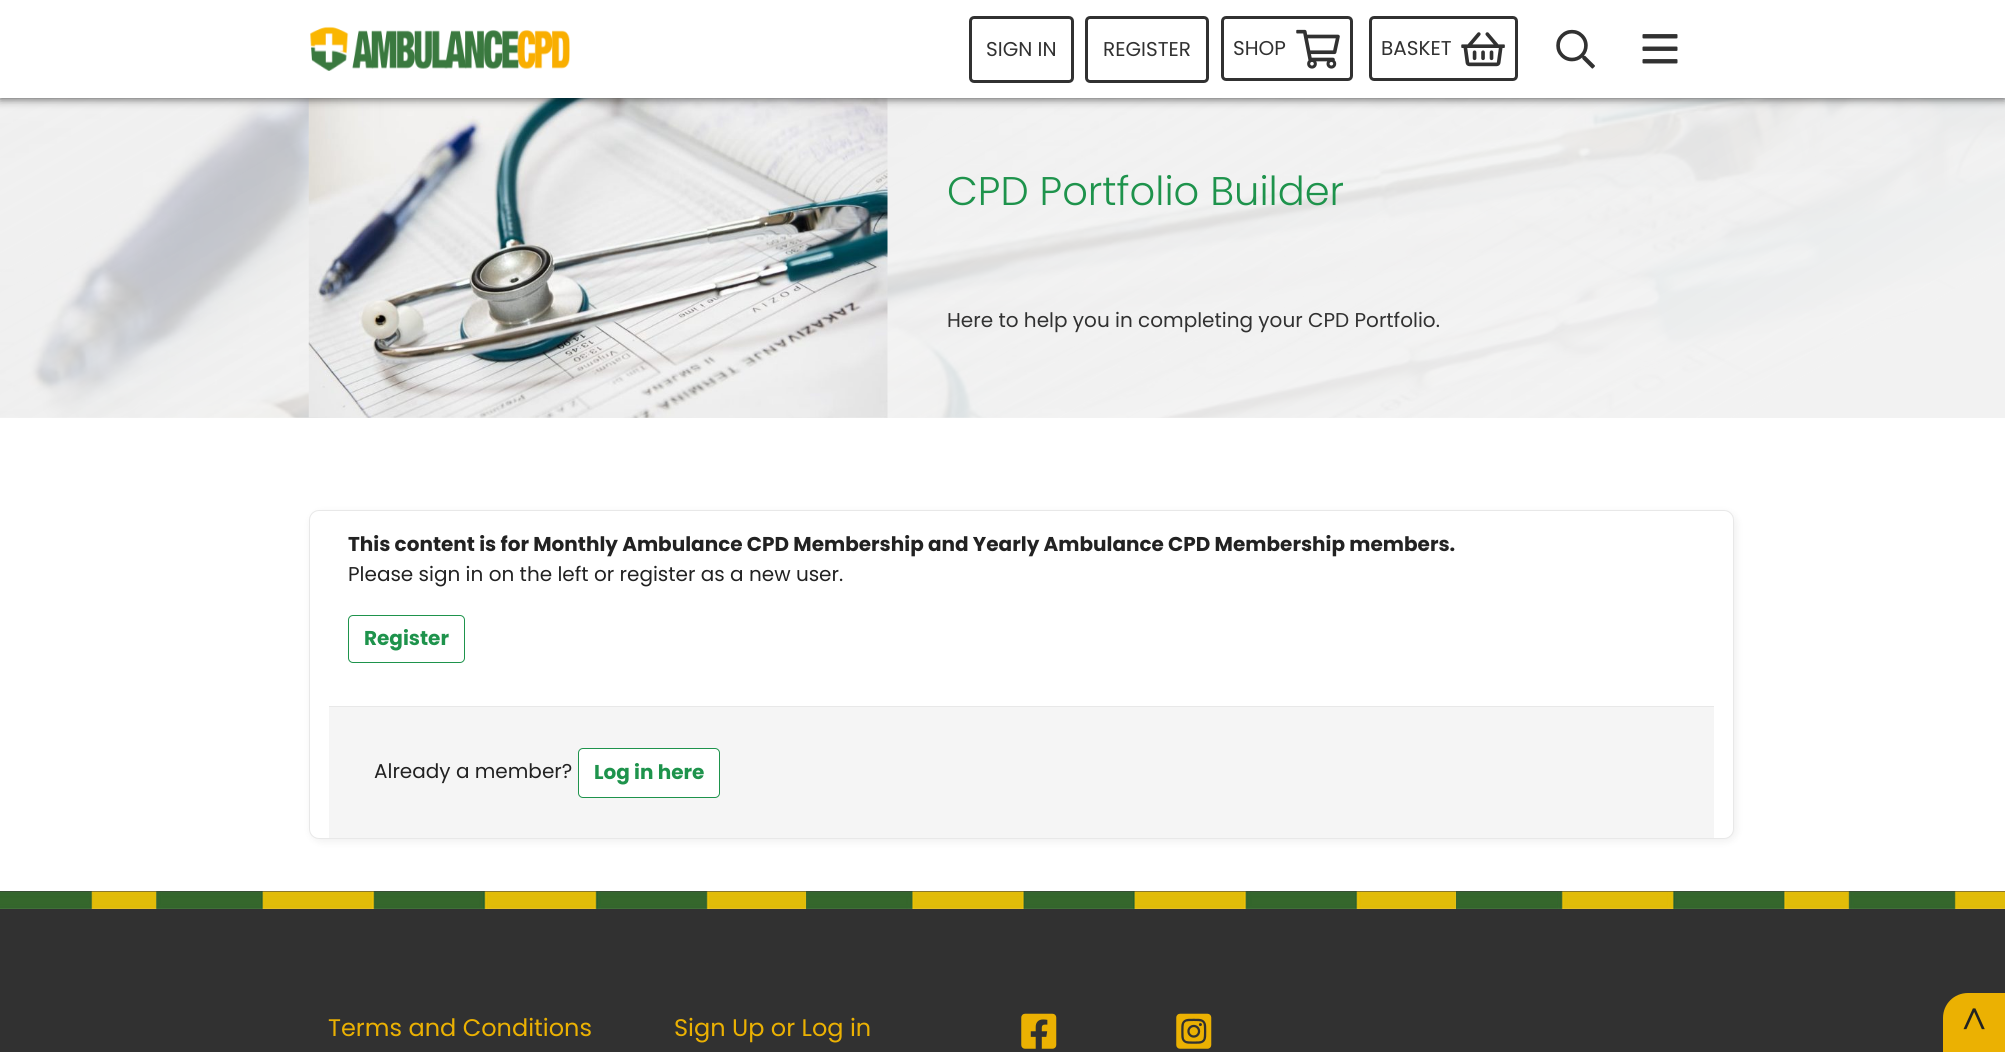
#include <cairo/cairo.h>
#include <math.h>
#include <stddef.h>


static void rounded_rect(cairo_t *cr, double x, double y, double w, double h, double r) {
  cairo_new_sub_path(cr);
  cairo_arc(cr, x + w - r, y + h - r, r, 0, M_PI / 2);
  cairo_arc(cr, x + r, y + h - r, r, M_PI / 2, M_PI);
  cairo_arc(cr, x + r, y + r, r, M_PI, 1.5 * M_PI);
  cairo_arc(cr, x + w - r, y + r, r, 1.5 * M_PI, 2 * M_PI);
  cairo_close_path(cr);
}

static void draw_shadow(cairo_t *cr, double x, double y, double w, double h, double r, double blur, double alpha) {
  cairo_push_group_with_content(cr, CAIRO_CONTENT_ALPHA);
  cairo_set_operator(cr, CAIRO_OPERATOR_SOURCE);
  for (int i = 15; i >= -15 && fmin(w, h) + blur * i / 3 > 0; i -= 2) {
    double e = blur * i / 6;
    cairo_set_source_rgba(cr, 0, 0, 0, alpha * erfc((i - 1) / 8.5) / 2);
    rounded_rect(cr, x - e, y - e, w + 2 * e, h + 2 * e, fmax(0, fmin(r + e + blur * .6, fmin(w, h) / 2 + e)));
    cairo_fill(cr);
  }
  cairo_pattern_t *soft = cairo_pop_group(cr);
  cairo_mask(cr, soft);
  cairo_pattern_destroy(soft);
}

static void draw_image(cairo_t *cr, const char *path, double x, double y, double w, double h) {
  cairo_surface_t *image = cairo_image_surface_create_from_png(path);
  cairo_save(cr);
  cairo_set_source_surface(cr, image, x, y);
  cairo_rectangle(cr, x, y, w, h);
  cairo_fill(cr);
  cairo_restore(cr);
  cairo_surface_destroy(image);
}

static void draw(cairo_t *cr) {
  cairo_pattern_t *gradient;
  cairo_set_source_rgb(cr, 1, 1, 1);
  cairo_paint(cr);
  draw_image(cr, "images/6.png", 0, 98, 2005, 320);
  gradient = cairo_pattern_create_linear(1323, 811, 682, -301);
  cairo_pattern_add_color_stop_rgba(gradient, 0.1, 242 / 255.0, 242 / 255.0, 242 / 255.0, 1);
  cairo_pattern_add_color_stop_rgba(gradient, 1, 242 / 255.0, 242 / 255.0, 242 / 255.0, 0.73);
  cairo_set_source(cr, gradient);
  cairo_pattern_destroy(gradient);
  cairo_rectangle(cr, 0, 98, 2005, 320);
  cairo_fill(cr);
  draw_image(cr, "images/7.png", 308, 98, 580, 320);
  cairo_set_source_rgb(cr, 0, 0, 0);
  draw_shadow(cr, 0, 0, 2005, 98, 0, 5, 0.75);
  cairo_set_source_rgb(cr, 1, 1, 1);
  cairo_rectangle(cr, 0, 0, 2005, 98);
  cairo_fill(cr);
  draw_image(cr, "images/1.png", 310, 26, 260, 45);
  rounded_rect(cr, 970.5, 17.5, 102, 64, 3.5);
  cairo_set_source_rgb(cr, 49 / 255.0, 49 / 255.0, 49 / 255.0);
  cairo_set_line_width(cr, 3);
  cairo_stroke(cr);
  rounded_rect(cr, 1086.5, 17.5, 121, 64, 3.5);
  cairo_stroke(cr);
  rounded_rect(cr, 1222.5, 17.5, 129, 62, 3.5);
  cairo_stroke(cr);
  draw_image(cr, "images/2.png", 1296, 29, 44, 40);
  rounded_rect(cr, 1370.5, 17.5, 146, 62, 3.5);
  cairo_stroke(cr);
  draw_image(cr, "images/3.png", 1461, 32, 44, 35);
  draw_image(cr, "images/4.png", 1556, 29, 39, 40);
  draw_image(cr, "images/5.png", 1642, 34, 36, 30);
  cairo_set_source_rgb(cr, 0, 0, 0);
  draw_shadow(cr, 311, 513, 1425, 328, 10, 4.5, 0.07);
  cairo_set_source_rgb(cr, 1, 1, 1);
  rounded_rect(cr, 309.5, 510.5, 1424, 328, 9.5);
  cairo_fill_preserve(cr);
  cairo_set_source_rgb(cr, 232 / 255.0, 232 / 255.0, 232 / 255.0);
  cairo_set_line_width(cr, 1);
  cairo_stroke(cr);
  rounded_rect(cr, 348.5, 615.5, 116, 47, 4.5);
  cairo_set_source_rgb(cr, 30 / 255.0, 147 / 255.0, 76 / 255.0);
  cairo_stroke(cr);
  cairo_set_source_rgb(cr, 245 / 255.0, 245 / 255.0, 245 / 255.0);
  cairo_rectangle(cr, 329, 707, 1385, 131);
  cairo_fill(cr);
  cairo_set_source_rgb(cr, 232 / 255.0, 232 / 255.0, 232 / 255.0);
  cairo_rectangle(cr, 329, 706, 1385, 1);
  cairo_fill(cr);
  cairo_set_source_rgb(cr, 1, 1, 1);
  rounded_rect(cr, 578.5, 748.5, 141, 49, 4.5);
  cairo_fill_preserve(cr);
  cairo_set_source_rgb(cr, 30 / 255.0, 147 / 255.0, 76 / 255.0);
  cairo_stroke(cr);
  cairo_set_source_rgb(cr, 49 / 255.0, 49 / 255.0, 49 / 255.0);
  cairo_rectangle(cr, 0, 891, 2005, 161);
  cairo_fill(cr);
  draw_image(cr, "images/8.png", 0, 891, 2005, 18);
  draw_image(cr, "images/9.png", 1021, 1013, 36, 36);
  draw_image(cr, "images/10.png", 1176, 1013, 36, 36);
  cairo_set_source_rgb(cr, 235 / 255.0, 177 / 255.0, 2 / 255.0);
  cairo_new_path(cr);
  cairo_move_to(cr, 1968, 993);
  cairo_line_to(cr, 2005, 993);
  cairo_line_to(cr, 2005, 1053);
  cairo_line_to(cr, 1943, 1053);
  cairo_line_to(cr, 1943, 1018);
  cairo_curve_to(cr, 1943, 1004, 1954, 993, 1968, 993);
  cairo_close_path(cr);
  cairo_fill(cr);
  cairo_select_font_face(cr, "Poppins", CAIRO_FONT_SLANT_NORMAL, CAIRO_FONT_WEIGHT_NORMAL);
  cairo_set_font_size(cr, 20);
  cairo_set_source_rgb(cr, 49 / 255.0, 49 / 255.0, 49 / 255.0);
  cairo_move_to(cr, 986, 56);
  cairo_show_text(cr, "SIGN IN");
  cairo_move_to(cr, 1103, 56);
  cairo_show_text(cr, "REGISTER");
  cairo_move_to(cr, 1233, 55);
  cairo_show_text(cr, "SHOP");
  cairo_move_to(cr, 1381, 55);
  cairo_show_text(cr, "BASKET");
  cairo_select_font_face(cr, "Poppins Light", CAIRO_FONT_SLANT_NORMAL, CAIRO_FONT_WEIGHT_NORMAL);
  cairo_set_font_size(cr, 40);
  cairo_set_source_rgb(cr, 30 / 255.0, 147 / 255.0, 76 / 255.0);
  cairo_move_to(cr, 947, 205);
  cairo_show_text(cr, "CPD Portfolio Builder");
  cairo_select_font_face(cr, "Poppins", CAIRO_FONT_SLANT_NORMAL, CAIRO_FONT_WEIGHT_NORMAL);
  cairo_set_font_size(cr, 20);
  cairo_set_source_rgb(cr, 49 / 255.0, 49 / 255.0, 49 / 255.0);
  cairo_move_to(cr, 947, 327);
  cairo_show_text(cr, "Here to help you in completing your CPD Portfolio.");
  cairo_select_font_face(cr, "Poppins", CAIRO_FONT_SLANT_NORMAL, CAIRO_FONT_WEIGHT_BOLD);
  cairo_set_source_rgb(cr, 34 / 255.0, 34 / 255.0, 34 / 255.0);
  cairo_move_to(cr, 348, 551);
  cairo_show_text(cr, "This content is for Monthly Ambulance CPD Membership and Yearly Ambulance CPD Membership members.");
  cairo_select_font_face(cr, "Poppins", CAIRO_FONT_SLANT_NORMAL, CAIRO_FONT_WEIGHT_NORMAL);
  cairo_move_to(cr, 348, 581);
  cairo_show_text(cr, "Please sign in on the left or register as a new user.");
  cairo_select_font_face(cr, "Poppins", CAIRO_FONT_SLANT_NORMAL, CAIRO_FONT_WEIGHT_BOLD);
  cairo_set_source_rgb(cr, 30 / 255.0, 147 / 255.0, 76 / 255.0);
  cairo_move_to(cr, 364, 645);
  cairo_show_text(cr, "Register");
  cairo_select_font_face(cr, "Poppins", CAIRO_FONT_SLANT_NORMAL, CAIRO_FONT_WEIGHT_NORMAL);
  cairo_set_source_rgb(cr, 34 / 255.0, 34 / 255.0, 34 / 255.0);
  cairo_move_to(cr, 374, 778);
  cairo_show_text(cr, "Already a member?");
  cairo_select_font_face(cr, "Poppins", CAIRO_FONT_SLANT_NORMAL, CAIRO_FONT_WEIGHT_BOLD);
  cairo_set_source_rgb(cr, 30 / 255.0, 147 / 255.0, 76 / 255.0);
  cairo_move_to(cr, 594, 779);
  cairo_show_text(cr, "Log in here");
  cairo_select_font_face(cr, "Poppins", CAIRO_FONT_SLANT_NORMAL, CAIRO_FONT_WEIGHT_NORMAL);
  cairo_set_font_size(cr, 24);
  cairo_set_source_rgb(cr, 235 / 255.0, 177 / 255.0, 2 / 255.0);
  cairo_move_to(cr, 328, 1036);
  cairo_show_text(cr, "Terms and Conditions");
  cairo_move_to(cr, 674, 1036);
  cairo_show_text(cr, "Sign Up or Log in");
  cairo_select_font_face(cr, "Poppins Light", CAIRO_FONT_SLANT_NORMAL, CAIRO_FONT_WEIGHT_NORMAL);
  cairo_set_font_size(cr, 40);
  cairo_set_source_rgb(cr, 34 / 255.0, 34 / 255.0, 34 / 255.0);
  cairo_move_to(cr, 1962, 1036);
  cairo_show_text(cr, "^");
}

int main(void) {
  cairo_surface_t *surface = cairo_image_surface_create(CAIRO_FORMAT_RGB24, 2005, 1052);
  cairo_t *cr = cairo_create(surface);
  cairo_font_options_t *options = cairo_font_options_create();
  cairo_font_options_set_hint_metrics(options, CAIRO_HINT_METRICS_OFF);
  cairo_font_options_set_hint_style(options, CAIRO_HINT_STYLE_NONE);
  cairo_set_font_options(cr, options);
  cairo_set_miter_limit(cr, 4);
  draw(cr);
  cairo_surface_write_to_png(surface, "out.png");
  cairo_font_options_destroy(options);
  cairo_destroy(cr);
  cairo_surface_destroy(surface);
  return 0;
}
